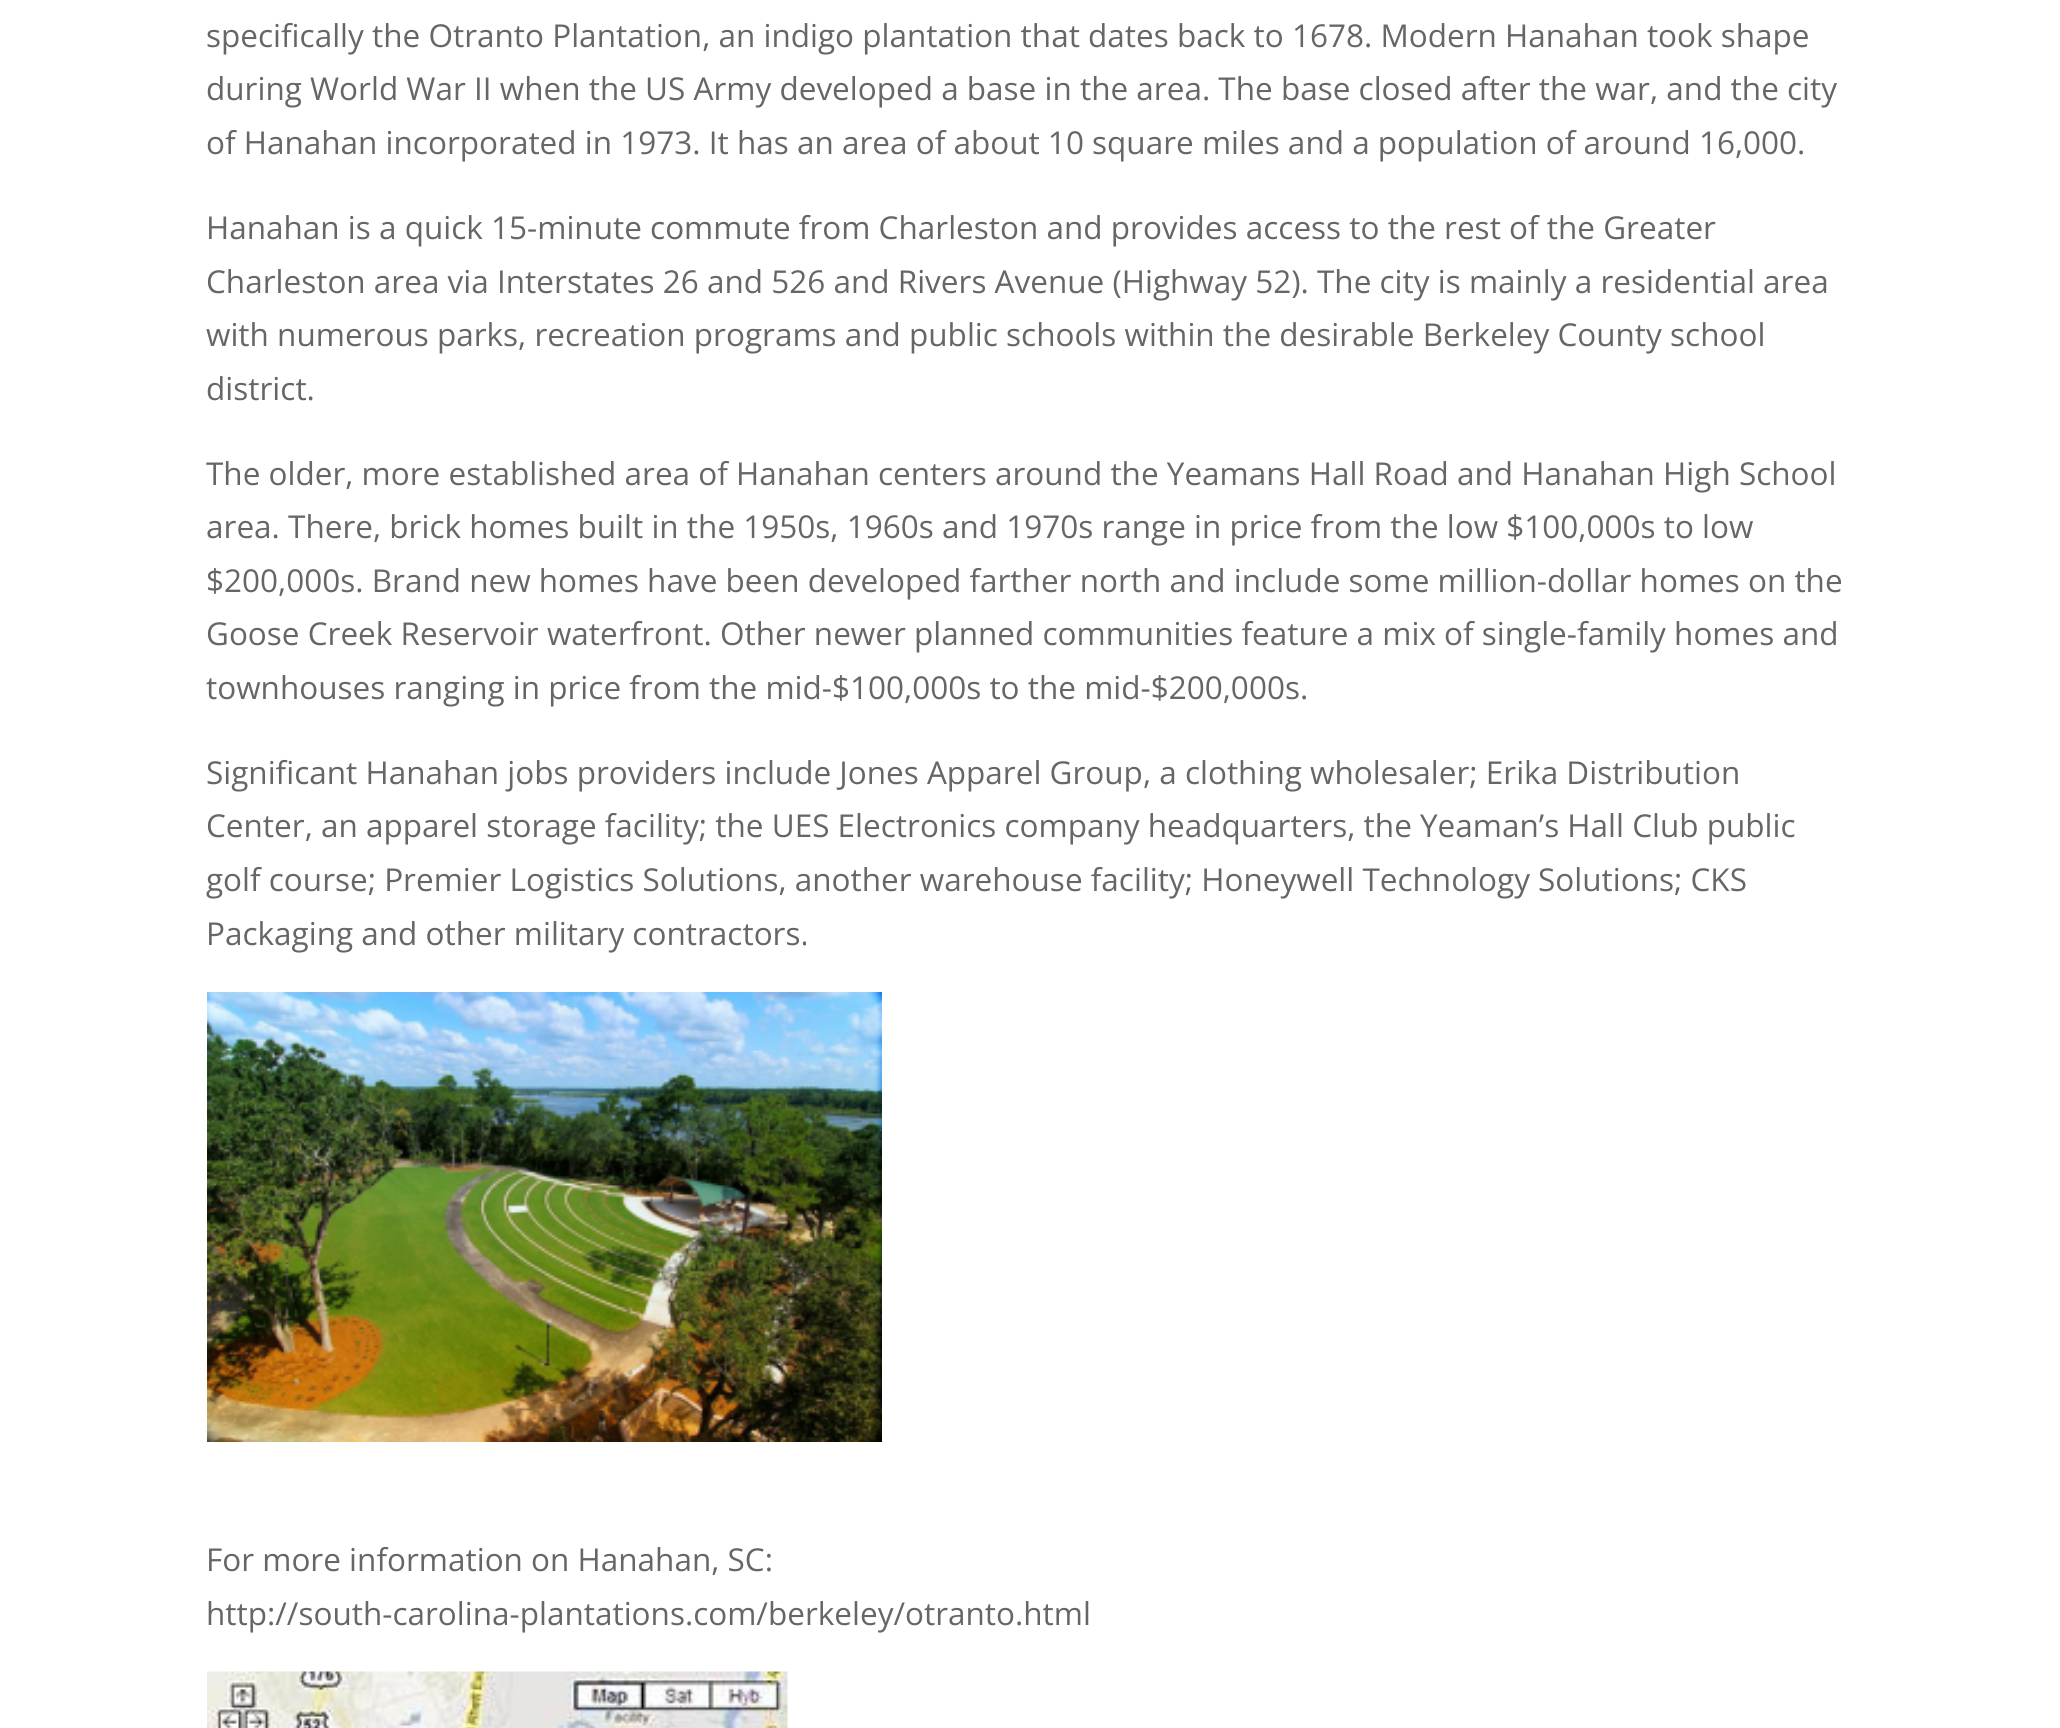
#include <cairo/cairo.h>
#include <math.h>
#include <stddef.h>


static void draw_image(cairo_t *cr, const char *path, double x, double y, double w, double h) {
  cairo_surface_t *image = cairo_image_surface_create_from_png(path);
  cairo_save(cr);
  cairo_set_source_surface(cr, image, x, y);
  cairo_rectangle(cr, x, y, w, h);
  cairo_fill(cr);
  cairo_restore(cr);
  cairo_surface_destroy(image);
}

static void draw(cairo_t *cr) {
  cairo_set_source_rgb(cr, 1, 1, 1);
  cairo_paint(cr);
  draw_image(cr, "images/1.png", 207, 992, 675, 450);
  draw_image(cr, "images/2.png", 207, 1671, 581, 57);
  cairo_select_font_face(cr, "Open Sans", CAIRO_FONT_SLANT_NORMAL, CAIRO_FONT_WEIGHT_NORMAL);
  cairo_set_font_size(cr, 31.5);
  cairo_set_source_rgb(cr, 102 / 255.0, 102 / 255.0, 102 / 255.0);
  cairo_move_to(cr, 206, 47);
  cairo_show_text(cr, "specifically the Otranto Plantation, an indigo plantation that dates back to 1678. Modern Hanahan took shape");
  cairo_move_to(cr, 206, 100);
  cairo_show_text(cr, "during World War II when the US Army developed a base in the area. The base closed after the war, and the city");
  cairo_move_to(cr, 206, 154);
  cairo_show_text(cr, "of Hanahan incorporated in 1973. It has an area of about 10 square miles and a population of around 16,000.");
  cairo_move_to(cr, 206, 239);
  cairo_show_text(cr, "Hanahan is a quick 15-minute commute from Charleston and provides access to the rest of the Greater");
  cairo_move_to(cr, 206, 293);
  cairo_show_text(cr, "Charleston area via Interstates 26 and 526 and Rivers Avenue (Highway 52). The city is mainly a residential area");
  cairo_move_to(cr, 206, 346);
  cairo_show_text(cr, "with numerous parks, recreation programs and public schools within the desirable Berkeley County school");
  cairo_move_to(cr, 206, 400);
  cairo_show_text(cr, "district.");
  cairo_move_to(cr, 206, 485);
  cairo_show_text(cr, "The older, more established area of Hanahan centers around the Yeamans Hall Road and Hanahan High School");
  cairo_move_to(cr, 206, 538);
  cairo_show_text(cr, "area. There, brick homes built in the 1950s, 1960s and 1970s range in price from the low $100,000s to low");
  cairo_move_to(cr, 206, 592);
  cairo_show_text(cr, "$200,000s. Brand new homes have been developed farther north and include some million-dollar homes on the");
  cairo_move_to(cr, 206, 645);
  cairo_show_text(cr, "Goose Creek Reservoir waterfront. Other newer planned communities feature a mix of single-family homes and");
  cairo_move_to(cr, 206, 699);
  cairo_show_text(cr, "townhouses ranging in price from the mid-$100,000s to the mid-$200,000s.");
  cairo_move_to(cr, 206, 784);
  cairo_show_text(cr, "Significant Hanahan jobs providers include Jones Apparel Group, a clothing wholesaler; Erika Distribution");
  cairo_move_to(cr, 206, 837);
  cairo_show_text(cr, "Center, an apparel storage facility; the UES Electronics company headquarters, the Yeaman’s Hall Club public");
  cairo_move_to(cr, 206, 891);
  cairo_show_text(cr, "golf course; Premier Logistics Solutions, another warehouse facility; Honeywell Technology Solutions; CKS");
  cairo_move_to(cr, 206, 945);
  cairo_show_text(cr, "Packaging and other military contractors.");
  cairo_move_to(cr, 206, 1571);
  cairo_show_text(cr, "For more information on Hanahan, SC:");
  cairo_move_to(cr, 206, 1625);
  cairo_show_text(cr, "http://south-carolina-plantations.com/berkeley/otranto.html");
}

int main(void) {
  cairo_surface_t *surface = cairo_image_surface_create(CAIRO_FORMAT_RGB24, 2060, 1728);
  cairo_t *cr = cairo_create(surface);
  cairo_font_options_t *options = cairo_font_options_create();
  cairo_font_options_set_hint_metrics(options, CAIRO_HINT_METRICS_OFF);
  cairo_font_options_set_hint_style(options, CAIRO_HINT_STYLE_NONE);
  cairo_set_font_options(cr, options);
  cairo_set_miter_limit(cr, 4);
  draw(cr);
  cairo_surface_write_to_png(surface, "out.png");
  cairo_font_options_destroy(options);
  cairo_destroy(cr);
  cairo_surface_destroy(surface);
  return 0;
}
